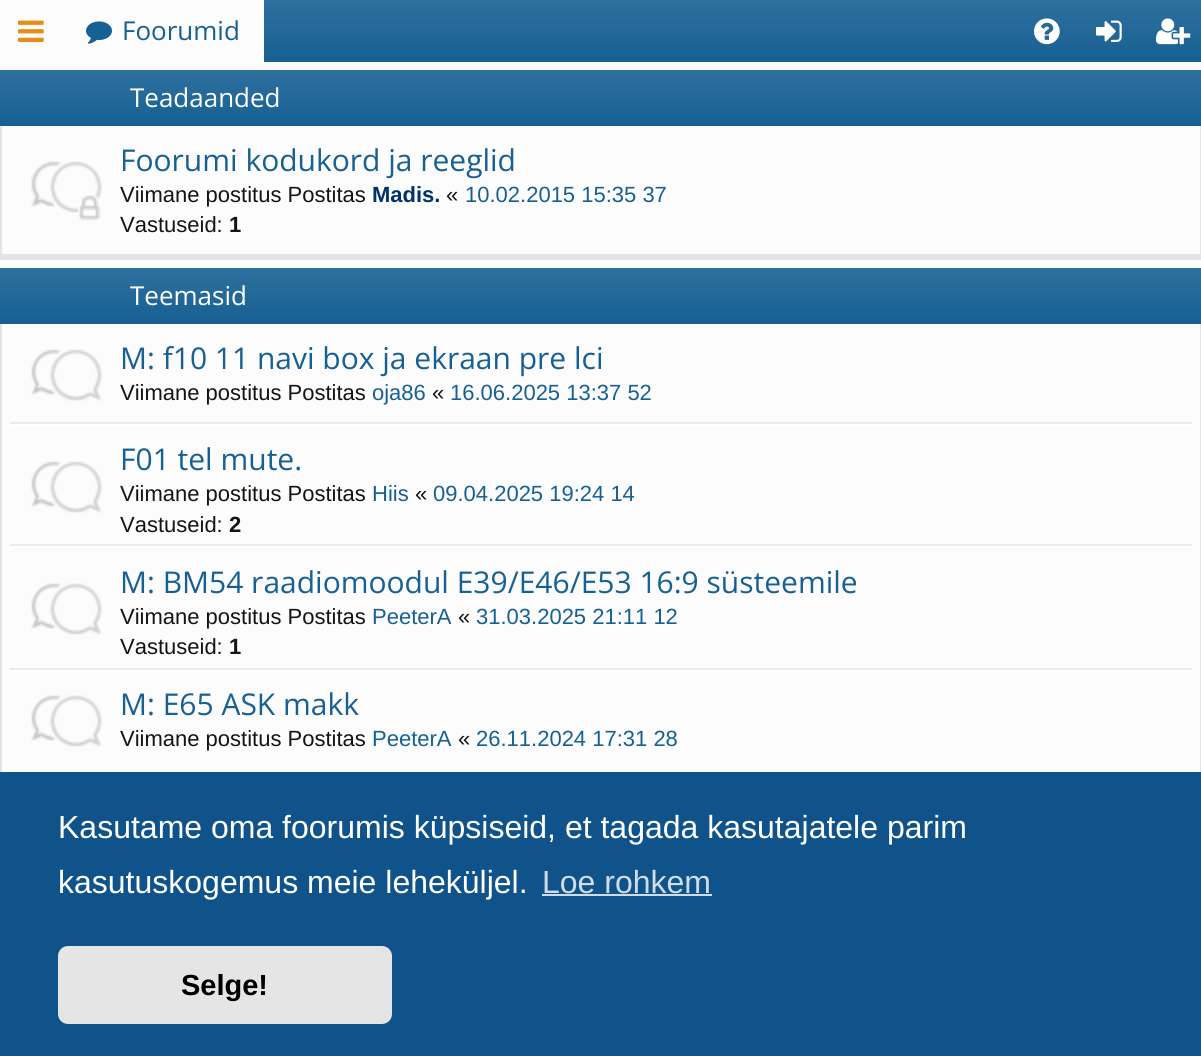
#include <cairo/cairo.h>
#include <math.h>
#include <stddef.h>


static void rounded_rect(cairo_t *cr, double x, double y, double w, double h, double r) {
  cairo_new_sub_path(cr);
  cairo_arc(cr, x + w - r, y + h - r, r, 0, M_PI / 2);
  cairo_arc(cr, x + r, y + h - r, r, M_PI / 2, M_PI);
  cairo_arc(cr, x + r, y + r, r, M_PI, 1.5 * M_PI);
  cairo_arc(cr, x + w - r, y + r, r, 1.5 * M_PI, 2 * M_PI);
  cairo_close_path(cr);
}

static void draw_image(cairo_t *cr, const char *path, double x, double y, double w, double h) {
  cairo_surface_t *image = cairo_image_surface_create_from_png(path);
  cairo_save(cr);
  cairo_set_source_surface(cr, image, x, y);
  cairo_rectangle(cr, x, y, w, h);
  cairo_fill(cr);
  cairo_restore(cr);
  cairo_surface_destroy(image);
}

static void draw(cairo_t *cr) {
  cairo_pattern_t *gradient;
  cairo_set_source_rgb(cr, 252 / 255.0, 252 / 255.0, 252 / 255.0);
  cairo_paint(cr);
  gradient = cairo_pattern_create_linear(601, 0, 601, 62);
  cairo_pattern_add_color_stop_rgba(gradient, 0, 46 / 255.0, 112 / 255.0, 158 / 255.0, 1);
  cairo_pattern_add_color_stop_rgba(gradient, 1, 23 / 255.0, 96 / 255.0, 147 / 255.0, 1);
  cairo_set_source(cr, gradient);
  cairo_pattern_destroy(gradient);
  cairo_rectangle(cr, 264, 0, 937, 62);
  cairo_fill(cr);
  draw_image(cr, "images/1.png", 18, 20, 26, 22);
  draw_image(cr, "images/2.png", 86, 21, 26, 23);
  draw_image(cr, "images/3.png", 1034, 18, 26, 27);
  draw_image(cr, "images/4.png", 1096, 20, 26, 22);
  draw_image(cr, "images/5.png", 1156, 18, 35, 27);
  cairo_set_source_rgb(cr, 228 / 255.0, 228 / 255.0, 228 / 255.0);
  cairo_rectangle(cr, 1200, 126, 1, 134);
  cairo_fill(cr);
  cairo_rectangle(cr, 0, 254, 1201, 6);
  cairo_fill(cr);
  cairo_rectangle(cr, 0, 126, 2, 134);
  cairo_fill(cr);
  gradient = cairo_pattern_create_linear(601, 70, 601, 126);
  cairo_pattern_add_color_stop_rgba(gradient, 0, 46 / 255.0, 112 / 255.0, 158 / 255.0, 1);
  cairo_pattern_add_color_stop_rgba(gradient, 1, 23 / 255.0, 96 / 255.0, 147 / 255.0, 1);
  cairo_set_source(cr, gradient);
  cairo_pattern_destroy(gradient);
  cairo_rectangle(cr, 0, 70, 1201, 56);
  cairo_fill(cr);
  draw_image(cr, "images/6.png", 31, 161, 71, 60);
  cairo_set_source_rgb(cr, 228 / 255.0, 228 / 255.0, 228 / 255.0);
  cairo_rectangle(cr, 1200, 324, 1, 448);
  cairo_fill(cr);
  cairo_rectangle(cr, 0, 324, 2, 448);
  cairo_fill(cr);
  gradient = cairo_pattern_create_linear(601, 268, 601, 324);
  cairo_pattern_add_color_stop_rgba(gradient, 0, 46 / 255.0, 112 / 255.0, 158 / 255.0, 1);
  cairo_pattern_add_color_stop_rgba(gradient, 1, 23 / 255.0, 96 / 255.0, 147 / 255.0, 1);
  cairo_set_source(cr, gradient);
  cairo_pattern_destroy(gradient);
  cairo_rectangle(cr, 0, 268, 1201, 56);
  cairo_fill(cr);
  cairo_set_source_rgb(cr, 235 / 255.0, 235 / 255.0, 235 / 255.0);
  cairo_rectangle(cr, 10, 422, 1182, 2);
  cairo_fill(cr);
  draw_image(cr, "images/7.png", 31, 349, 71, 52);
  cairo_set_source_rgb(cr, 1, 1, 1);
  cairo_rectangle(cr, 10, 424, 1182, 2);
  cairo_fill(cr);
  cairo_set_source_rgb(cr, 235 / 255.0, 235 / 255.0, 235 / 255.0);
  cairo_rectangle(cr, 10, 544, 1182, 2);
  cairo_fill(cr);
  draw_image(cr, "images/7.png", 31, 461, 71, 52);
  cairo_set_source_rgb(cr, 1, 1, 1);
  cairo_rectangle(cr, 10, 546, 1182, 2);
  cairo_fill(cr);
  cairo_set_source_rgb(cr, 235 / 255.0, 235 / 255.0, 235 / 255.0);
  cairo_rectangle(cr, 10, 668, 1182, 2);
  cairo_fill(cr);
  draw_image(cr, "images/7.png", 31, 583, 71, 52);
  cairo_set_source_rgb(cr, 1, 1, 1);
  cairo_rectangle(cr, 10, 670, 1182, 2);
  cairo_fill(cr);
  draw_image(cr, "images/7.png", 31, 695, 71, 52);
  cairo_set_source_rgb(cr, 15 / 255.0, 83 / 255.0, 138 / 255.0);
  cairo_rectangle(cr, 0, 772, 1201, 284);
  cairo_fill(cr);
  cairo_set_source_rgb(cr, 207 / 255.0, 221 / 255.0, 232 / 255.0);
  cairo_rectangle(cr, 542, 894, 170, 2);
  cairo_fill(cr);
  cairo_set_source_rgb(cr, 229 / 255.0, 229 / 255.0, 229 / 255.0);
  rounded_rect(cr, 58, 946, 334, 78, 10);
  cairo_fill(cr);
  cairo_select_font_face(cr, "Open Sans", CAIRO_FONT_SLANT_NORMAL, CAIRO_FONT_WEIGHT_NORMAL);
  cairo_set_font_size(cr, 26);
  cairo_set_source_rgb(cr, 23 / 255.0, 96 / 255.0, 147 / 255.0);
  cairo_move_to(cr, 122, 40);
  cairo_show_text(cr, "Foorumid");
  cairo_set_source_rgb(cr, 1, 1, 1);
  cairo_move_to(cr, 130, 107);
  cairo_show_text(cr, "Teadaanded");
  cairo_set_font_size(cr, 30);
  cairo_set_source_rgb(cr, 23 / 255.0, 96 / 255.0, 147 / 255.0);
  cairo_move_to(cr, 120, 171);
  cairo_show_text(cr, "Foorumi kodukord ja reeglid");
  cairo_select_font_face(cr, "Liberation Sans", CAIRO_FONT_SLANT_NORMAL, CAIRO_FONT_WEIGHT_NORMAL);
  cairo_set_font_size(cr, 22);
  cairo_set_source_rgb(cr, 20 / 255.0, 20 / 255.0, 20 / 255.0);
  cairo_move_to(cr, 120, 202);
  cairo_show_text(cr, "Viimane postitus Postitas");
  cairo_select_font_face(cr, "Liberation Sans", CAIRO_FONT_SLANT_NORMAL, CAIRO_FONT_WEIGHT_BOLD);
  cairo_set_source_rgb(cr, 0, 51 / 255.0, 102 / 255.0);
  cairo_move_to(cr, 372, 202);
  cairo_show_text(cr, "Madis.");
  cairo_select_font_face(cr, "Liberation Sans", CAIRO_FONT_SLANT_NORMAL, CAIRO_FONT_WEIGHT_NORMAL);
  cairo_set_source_rgb(cr, 20 / 255.0, 20 / 255.0, 20 / 255.0);
  cairo_move_to(cr, 446, 202);
  cairo_show_text(cr, "«");
  cairo_set_source_rgb(cr, 23 / 255.0, 96 / 255.0, 147 / 255.0);
  cairo_move_to(cr, 465, 202);
  cairo_show_text(cr, "10.02.2015 15:35 37");
  cairo_set_source_rgb(cr, 20 / 255.0, 20 / 255.0, 20 / 255.0);
  cairo_move_to(cr, 120, 232);
  cairo_show_text(cr, "Vastuseid:");
  cairo_select_font_face(cr, "Liberation Sans", CAIRO_FONT_SLANT_NORMAL, CAIRO_FONT_WEIGHT_BOLD);
  cairo_move_to(cr, 229, 232);
  cairo_show_text(cr, "1");
  cairo_select_font_face(cr, "Open Sans", CAIRO_FONT_SLANT_NORMAL, CAIRO_FONT_WEIGHT_NORMAL);
  cairo_set_font_size(cr, 26);
  cairo_set_source_rgb(cr, 1, 1, 1);
  cairo_move_to(cr, 130, 305);
  cairo_show_text(cr, "Teemasid");
  cairo_set_font_size(cr, 30);
  cairo_set_source_rgb(cr, 23 / 255.0, 96 / 255.0, 147 / 255.0);
  cairo_move_to(cr, 120, 369);
  cairo_show_text(cr, "M: f10 11 navi box ja ekraan pre lci");
  cairo_select_font_face(cr, "Liberation Sans", CAIRO_FONT_SLANT_NORMAL, CAIRO_FONT_WEIGHT_NORMAL);
  cairo_set_font_size(cr, 22);
  cairo_set_source_rgb(cr, 20 / 255.0, 20 / 255.0, 20 / 255.0);
  cairo_move_to(cr, 120, 400);
  cairo_show_text(cr, "Viimane postitus Postitas");
  cairo_set_source_rgb(cr, 23 / 255.0, 96 / 255.0, 147 / 255.0);
  cairo_move_to(cr, 372, 400);
  cairo_show_text(cr, "oja86");
  cairo_set_source_rgb(cr, 20 / 255.0, 20 / 255.0, 20 / 255.0);
  cairo_move_to(cr, 432, 400);
  cairo_show_text(cr, "«");
  cairo_set_source_rgb(cr, 23 / 255.0, 96 / 255.0, 147 / 255.0);
  cairo_move_to(cr, 450, 400);
  cairo_show_text(cr, "16.06.2025 13:37 52");
  cairo_select_font_face(cr, "Open Sans", CAIRO_FONT_SLANT_NORMAL, CAIRO_FONT_WEIGHT_NORMAL);
  cairo_set_font_size(cr, 30);
  cairo_move_to(cr, 120, 470);
  cairo_show_text(cr, "F01 tel mute.");
  cairo_select_font_face(cr, "Liberation Sans", CAIRO_FONT_SLANT_NORMAL, CAIRO_FONT_WEIGHT_NORMAL);
  cairo_set_font_size(cr, 22);
  cairo_set_source_rgb(cr, 20 / 255.0, 20 / 255.0, 20 / 255.0);
  cairo_move_to(cr, 120, 501);
  cairo_show_text(cr, "Viimane postitus Postitas");
  cairo_set_source_rgb(cr, 23 / 255.0, 96 / 255.0, 147 / 255.0);
  cairo_move_to(cr, 372, 501);
  cairo_show_text(cr, "Hiis");
  cairo_set_source_rgb(cr, 20 / 255.0, 20 / 255.0, 20 / 255.0);
  cairo_move_to(cr, 415, 501);
  cairo_show_text(cr, "«");
  cairo_set_source_rgb(cr, 23 / 255.0, 96 / 255.0, 147 / 255.0);
  cairo_move_to(cr, 433, 501);
  cairo_show_text(cr, "09.04.2025 19:24 14");
  cairo_set_source_rgb(cr, 20 / 255.0, 20 / 255.0, 20 / 255.0);
  cairo_move_to(cr, 120, 532);
  cairo_show_text(cr, "Vastuseid:");
  cairo_select_font_face(cr, "Liberation Sans", CAIRO_FONT_SLANT_NORMAL, CAIRO_FONT_WEIGHT_BOLD);
  cairo_move_to(cr, 229, 532);
  cairo_show_text(cr, "2");
  cairo_select_font_face(cr, "Open Sans", CAIRO_FONT_SLANT_NORMAL, CAIRO_FONT_WEIGHT_NORMAL);
  cairo_set_font_size(cr, 30);
  cairo_set_source_rgb(cr, 23 / 255.0, 96 / 255.0, 147 / 255.0);
  cairo_move_to(cr, 120, 593);
  cairo_show_text(cr, "M: BM54 raadiomoodul E39/E46/E53 16:9 süsteemile");
  cairo_select_font_face(cr, "Liberation Sans", CAIRO_FONT_SLANT_NORMAL, CAIRO_FONT_WEIGHT_NORMAL);
  cairo_set_font_size(cr, 22);
  cairo_set_source_rgb(cr, 20 / 255.0, 20 / 255.0, 20 / 255.0);
  cairo_move_to(cr, 120, 624);
  cairo_show_text(cr, "Viimane postitus Postitas");
  cairo_set_source_rgb(cr, 23 / 255.0, 96 / 255.0, 147 / 255.0);
  cairo_move_to(cr, 372, 624);
  cairo_show_text(cr, "PeeterA");
  cairo_set_source_rgb(cr, 20 / 255.0, 20 / 255.0, 20 / 255.0);
  cairo_move_to(cr, 458, 624);
  cairo_show_text(cr, "«");
  cairo_set_source_rgb(cr, 23 / 255.0, 96 / 255.0, 147 / 255.0);
  cairo_move_to(cr, 476, 624);
  cairo_show_text(cr, "31.03.2025 21:11 12");
  cairo_set_source_rgb(cr, 20 / 255.0, 20 / 255.0, 20 / 255.0);
  cairo_move_to(cr, 120, 654);
  cairo_show_text(cr, "Vastuseid:");
  cairo_select_font_face(cr, "Liberation Sans", CAIRO_FONT_SLANT_NORMAL, CAIRO_FONT_WEIGHT_BOLD);
  cairo_move_to(cr, 229, 654);
  cairo_show_text(cr, "1");
  cairo_select_font_face(cr, "Open Sans", CAIRO_FONT_SLANT_NORMAL, CAIRO_FONT_WEIGHT_NORMAL);
  cairo_set_font_size(cr, 30);
  cairo_set_source_rgb(cr, 23 / 255.0, 96 / 255.0, 147 / 255.0);
  cairo_move_to(cr, 120, 715);
  cairo_show_text(cr, "M: E65 ASK makk");
  cairo_select_font_face(cr, "Liberation Sans", CAIRO_FONT_SLANT_NORMAL, CAIRO_FONT_WEIGHT_NORMAL);
  cairo_set_font_size(cr, 22);
  cairo_set_source_rgb(cr, 20 / 255.0, 20 / 255.0, 20 / 255.0);
  cairo_move_to(cr, 120, 746);
  cairo_show_text(cr, "Viimane postitus Postitas");
  cairo_set_source_rgb(cr, 23 / 255.0, 96 / 255.0, 147 / 255.0);
  cairo_move_to(cr, 372, 746);
  cairo_show_text(cr, "PeeterA");
  cairo_set_source_rgb(cr, 20 / 255.0, 20 / 255.0, 20 / 255.0);
  cairo_move_to(cr, 458, 746);
  cairo_show_text(cr, "«");
  cairo_set_source_rgb(cr, 23 / 255.0, 96 / 255.0, 147 / 255.0);
  cairo_move_to(cr, 476, 746);
  cairo_show_text(cr, "26.11.2024 17:31 28");
  cairo_set_font_size(cr, 32);
  cairo_set_source_rgb(cr, 1, 1, 1);
  cairo_move_to(cr, 58, 838);
  cairo_show_text(cr, "Kasutame oma foorumis küpsiseid, et tagada kasutajatele parim");
  cairo_move_to(cr, 58, 893);
  cairo_show_text(cr, "kasutuskogemus meie leheküljel.");
  cairo_set_source_rgb(cr, 207 / 255.0, 221 / 255.0, 232 / 255.0);
  cairo_move_to(cr, 542, 893);
  cairo_show_text(cr, "Loe rohkem");
  cairo_select_font_face(cr, "Liberation Sans", CAIRO_FONT_SLANT_NORMAL, CAIRO_FONT_WEIGHT_BOLD);
  cairo_set_font_size(cr, 29);
  cairo_set_source_rgb(cr, 0, 0, 0);
  cairo_move_to(cr, 181, 995);
  cairo_show_text(cr, "Selge!");
}

int main(void) {
  cairo_surface_t *surface = cairo_image_surface_create(CAIRO_FORMAT_RGB24, 1201, 1056);
  cairo_t *cr = cairo_create(surface);
  cairo_font_options_t *options = cairo_font_options_create();
  cairo_font_options_set_hint_metrics(options, CAIRO_HINT_METRICS_OFF);
  cairo_font_options_set_hint_style(options, CAIRO_HINT_STYLE_NONE);
  cairo_set_font_options(cr, options);
  cairo_set_miter_limit(cr, 4);
  draw(cr);
  cairo_surface_write_to_png(surface, "out.png");
  cairo_font_options_destroy(options);
  cairo_destroy(cr);
  cairo_surface_destroy(surface);
  return 0;
}
